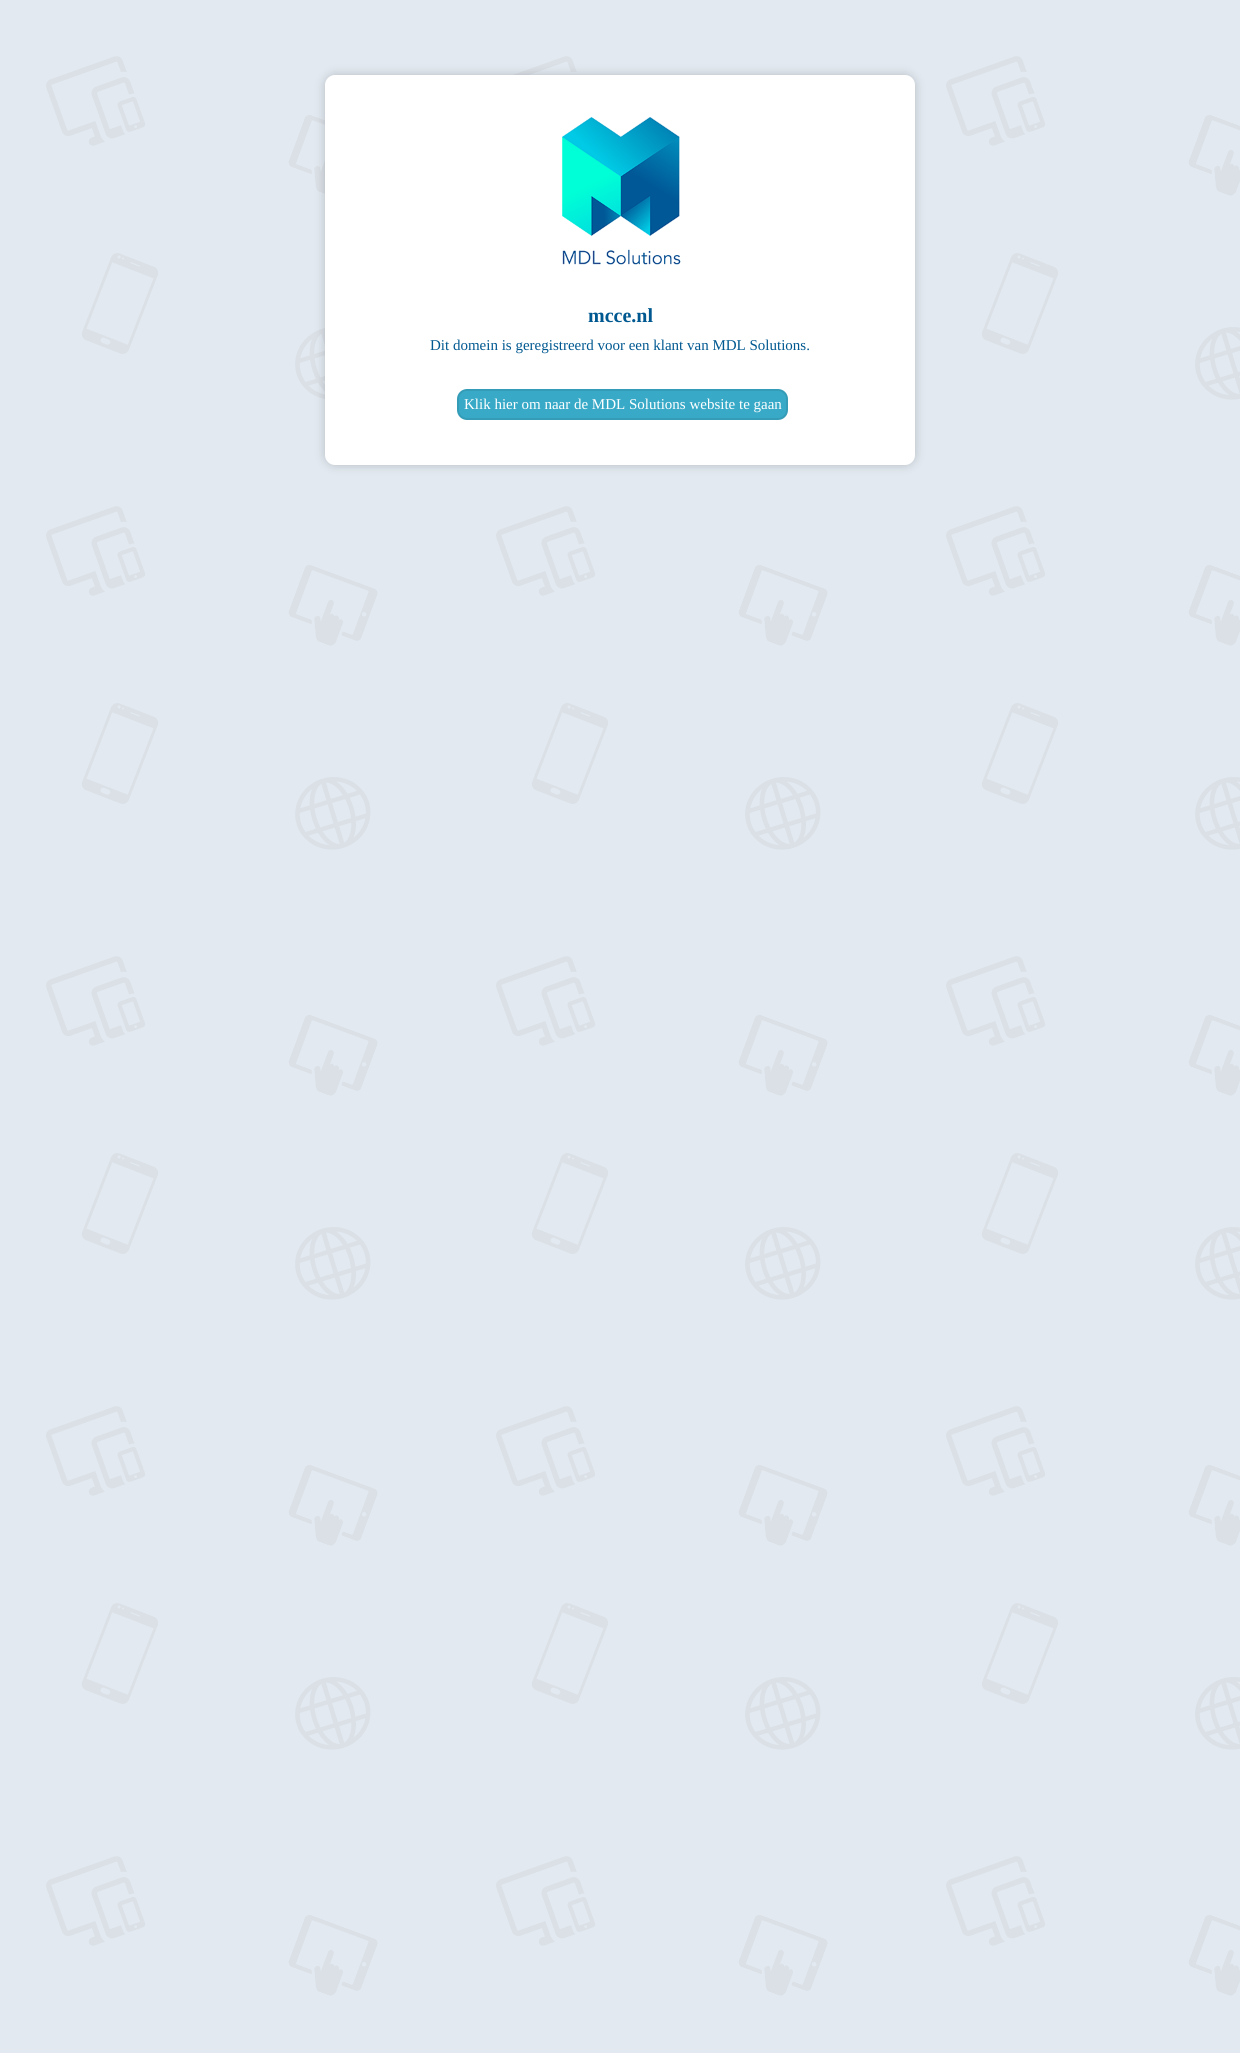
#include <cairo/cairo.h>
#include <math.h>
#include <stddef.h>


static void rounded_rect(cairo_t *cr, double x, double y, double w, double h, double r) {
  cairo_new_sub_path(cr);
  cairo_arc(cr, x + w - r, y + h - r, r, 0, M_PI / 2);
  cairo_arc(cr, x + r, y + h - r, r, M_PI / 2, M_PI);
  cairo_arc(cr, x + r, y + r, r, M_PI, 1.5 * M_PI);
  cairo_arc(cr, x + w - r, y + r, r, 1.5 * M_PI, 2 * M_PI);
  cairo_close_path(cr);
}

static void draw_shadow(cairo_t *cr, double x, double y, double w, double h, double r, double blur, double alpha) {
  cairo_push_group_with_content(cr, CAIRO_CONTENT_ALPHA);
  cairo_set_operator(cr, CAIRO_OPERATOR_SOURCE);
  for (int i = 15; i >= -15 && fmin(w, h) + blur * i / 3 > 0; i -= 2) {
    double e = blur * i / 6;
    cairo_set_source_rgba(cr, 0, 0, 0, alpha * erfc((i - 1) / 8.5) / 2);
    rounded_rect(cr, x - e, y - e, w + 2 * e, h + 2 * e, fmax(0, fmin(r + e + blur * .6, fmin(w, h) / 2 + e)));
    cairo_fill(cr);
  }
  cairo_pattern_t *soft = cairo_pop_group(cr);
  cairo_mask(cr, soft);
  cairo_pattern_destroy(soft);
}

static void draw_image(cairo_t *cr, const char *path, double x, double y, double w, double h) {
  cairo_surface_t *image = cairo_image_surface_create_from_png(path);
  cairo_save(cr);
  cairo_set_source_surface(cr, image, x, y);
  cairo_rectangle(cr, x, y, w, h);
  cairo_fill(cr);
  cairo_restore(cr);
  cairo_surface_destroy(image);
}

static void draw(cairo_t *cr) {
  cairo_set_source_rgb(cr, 1, 1, 1);
  cairo_paint(cr);
  draw_image(cr, "images/1.png", 0, 0, 1240, 2053);
  cairo_set_source_rgb(cr, 0, 0, 0);
  draw_shadow(cr, 325, 75, 590, 390, 10, 5, 0.2);
  cairo_set_source_rgb(cr, 1, 1, 1);
  rounded_rect(cr, 325, 75, 590, 390, 10);
  cairo_fill(cr);
  draw_image(cr, "images/2.png", 562, 117, 119, 148);
  cairo_set_source_rgb(cr, 56 / 255.0, 170 / 255.0, 200 / 255.0);
  rounded_rect(cr, 458, 390, 329, 29, 9);
  cairo_fill_preserve(cr);
  cairo_set_source_rgb(cr, 52 / 255.0, 156 / 255.0, 183 / 255.0);
  cairo_stroke(cr);
  cairo_select_font_face(cr, "Liberation Serif", CAIRO_FONT_SLANT_NORMAL, CAIRO_FONT_WEIGHT_BOLD);
  cairo_set_font_size(cr, 20);
  cairo_set_source_rgb(cr, 0, 88 / 255.0, 144 / 255.0);
  cairo_move_to(cr, 588, 322);
  cairo_show_text(cr, "mcce.nl");
  cairo_select_font_face(cr, "Liberation Serif", CAIRO_FONT_SLANT_NORMAL, CAIRO_FONT_WEIGHT_NORMAL);
  cairo_set_font_size(cr, 15);
  cairo_move_to(cr, 430, 350);
  cairo_show_text(cr, "Dit domein is geregistreerd voor een klant van MDL Solutions.");
  cairo_set_source_rgb(cr, 1, 1, 1);
  cairo_move_to(cr, 464, 409);
  cairo_show_text(cr, "Klik hier om naar de MDL Solutions website te gaan");
}

int main(void) {
  cairo_surface_t *surface = cairo_image_surface_create(CAIRO_FORMAT_RGB24, 1240, 2053);
  cairo_t *cr = cairo_create(surface);
  cairo_font_options_t *options = cairo_font_options_create();
  cairo_font_options_set_hint_metrics(options, CAIRO_HINT_METRICS_OFF);
  cairo_font_options_set_hint_style(options, CAIRO_HINT_STYLE_NONE);
  cairo_set_font_options(cr, options);
  cairo_set_miter_limit(cr, 4);
  draw(cr);
  cairo_surface_write_to_png(surface, "out.png");
  cairo_font_options_destroy(options);
  cairo_destroy(cr);
  cairo_surface_destroy(surface);
  return 0;
}
